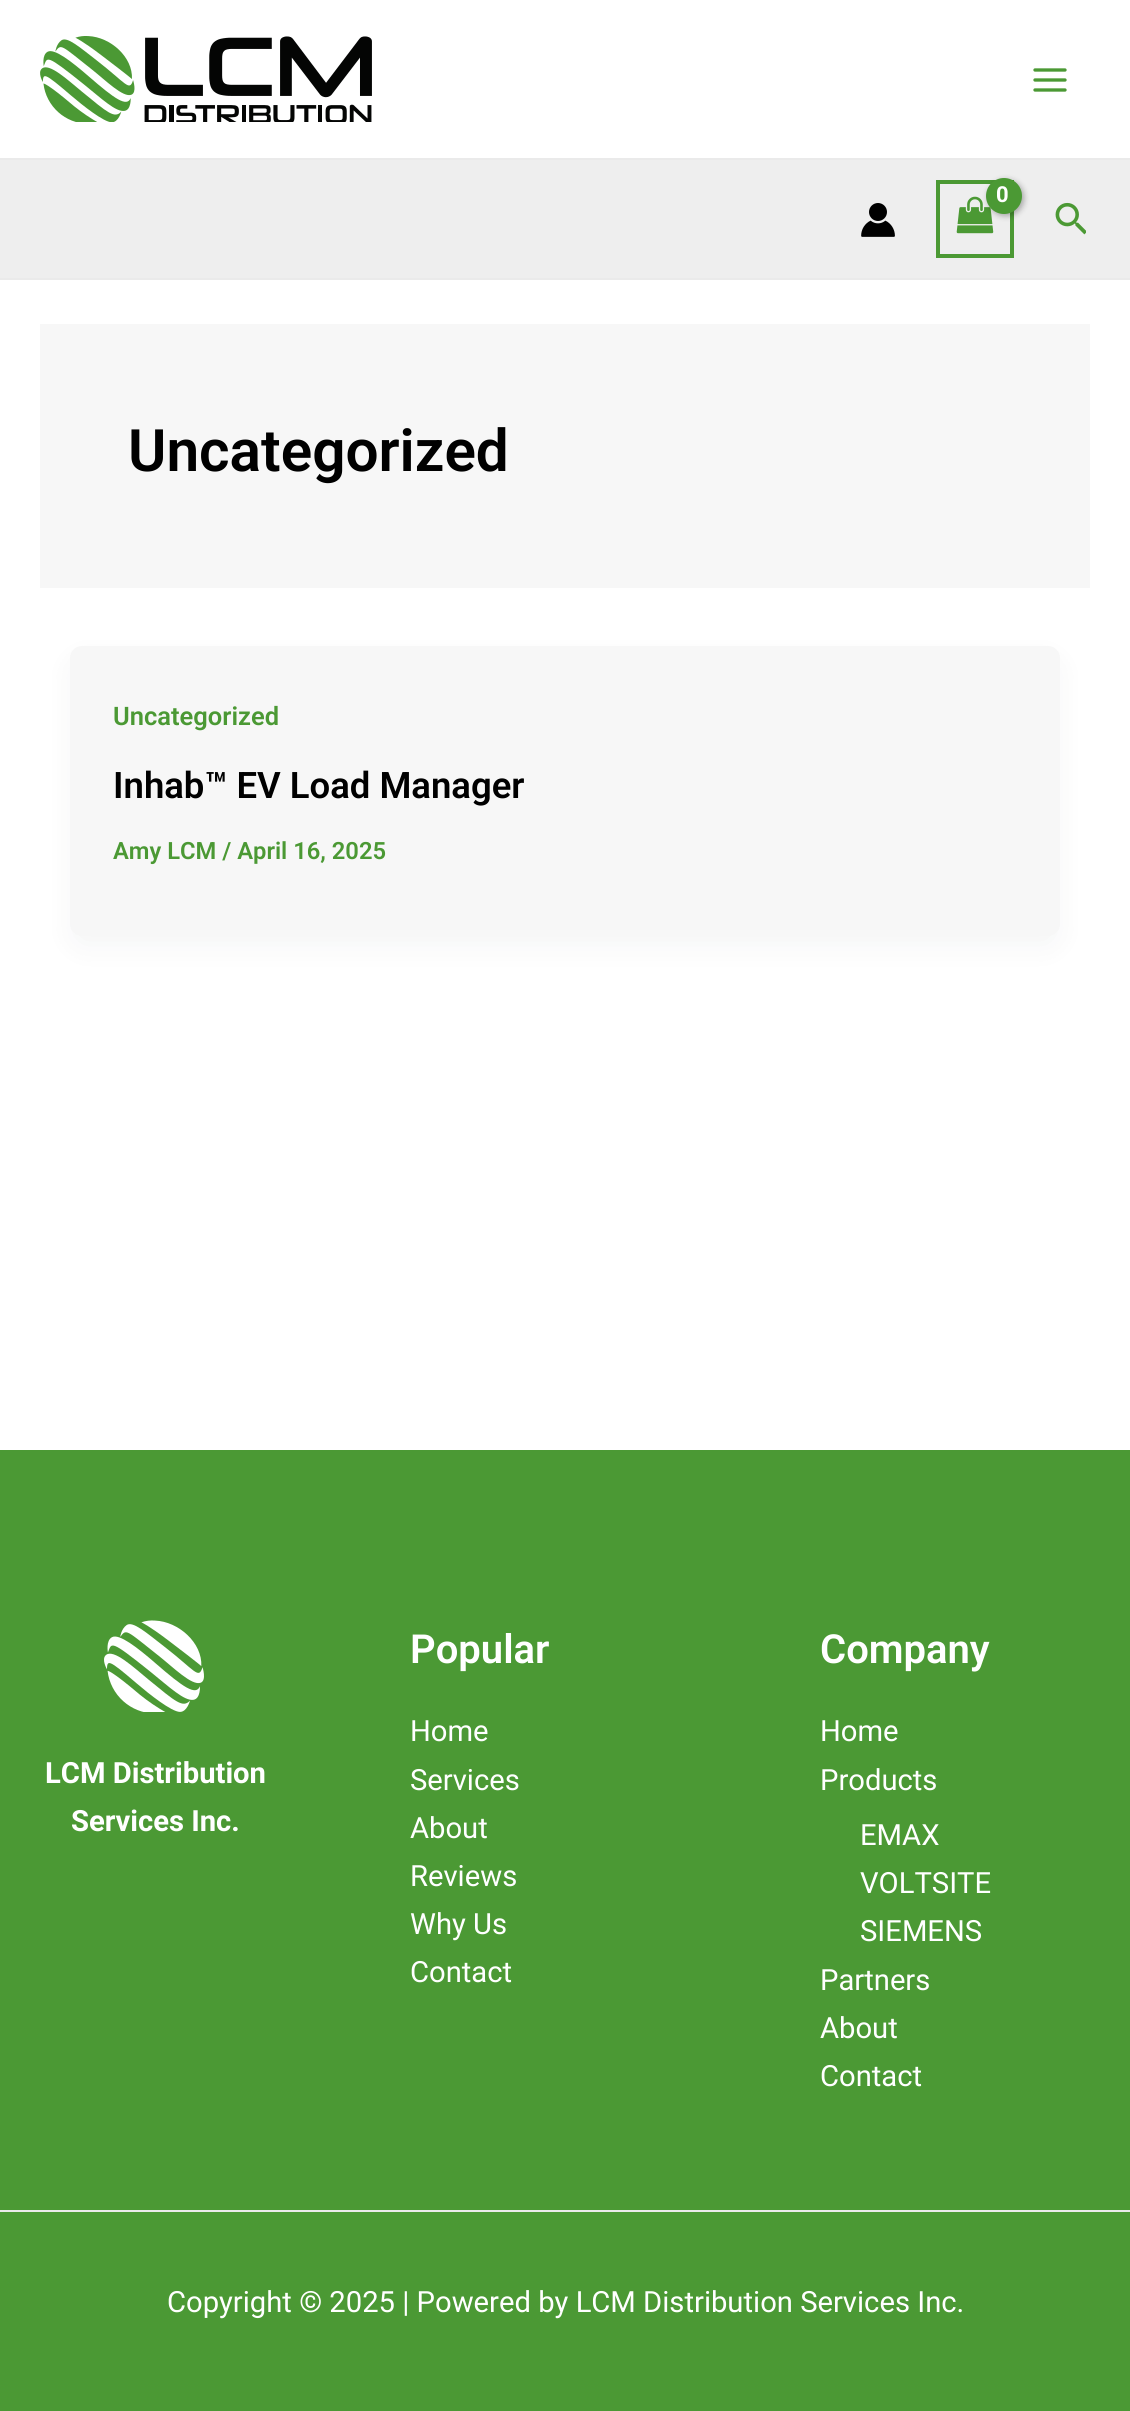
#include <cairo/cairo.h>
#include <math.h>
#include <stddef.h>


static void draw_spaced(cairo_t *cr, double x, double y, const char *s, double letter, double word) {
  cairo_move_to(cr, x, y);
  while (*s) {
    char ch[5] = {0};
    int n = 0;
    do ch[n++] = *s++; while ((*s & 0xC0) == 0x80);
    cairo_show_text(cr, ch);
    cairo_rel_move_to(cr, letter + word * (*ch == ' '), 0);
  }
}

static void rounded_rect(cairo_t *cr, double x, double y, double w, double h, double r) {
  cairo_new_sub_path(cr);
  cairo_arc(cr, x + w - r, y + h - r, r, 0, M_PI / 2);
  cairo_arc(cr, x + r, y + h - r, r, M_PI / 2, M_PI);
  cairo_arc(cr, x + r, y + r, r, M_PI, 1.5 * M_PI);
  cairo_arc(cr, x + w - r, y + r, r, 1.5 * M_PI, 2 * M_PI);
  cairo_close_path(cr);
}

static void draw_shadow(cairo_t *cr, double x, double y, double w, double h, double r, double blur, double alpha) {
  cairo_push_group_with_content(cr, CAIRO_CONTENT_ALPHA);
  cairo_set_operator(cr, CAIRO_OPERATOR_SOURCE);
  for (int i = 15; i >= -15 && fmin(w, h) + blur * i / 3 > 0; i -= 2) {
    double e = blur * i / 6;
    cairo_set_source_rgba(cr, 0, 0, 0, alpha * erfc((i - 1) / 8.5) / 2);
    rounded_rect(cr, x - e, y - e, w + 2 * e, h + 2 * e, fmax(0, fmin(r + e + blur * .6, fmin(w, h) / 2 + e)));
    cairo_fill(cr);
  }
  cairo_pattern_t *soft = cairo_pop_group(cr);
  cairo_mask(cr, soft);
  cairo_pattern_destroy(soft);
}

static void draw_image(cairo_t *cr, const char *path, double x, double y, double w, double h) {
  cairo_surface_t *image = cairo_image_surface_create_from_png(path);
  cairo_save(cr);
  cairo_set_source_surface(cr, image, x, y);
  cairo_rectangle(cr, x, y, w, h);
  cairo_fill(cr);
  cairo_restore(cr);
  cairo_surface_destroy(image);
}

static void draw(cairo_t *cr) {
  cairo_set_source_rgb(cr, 1, 1, 1);
  cairo_paint(cr);
  cairo_set_source_rgb(cr, 234 / 255.0, 234 / 255.0, 234 / 255.0);
  cairo_rectangle(cr, 0, 158, 1130, 2);
  cairo_fill(cr);
  draw_image(cr, "images/1.png", 40, 36, 332, 86);
  draw_image(cr, "images/2.png", 1033, 68, 34, 24);
  cairo_set_source_rgb(cr, 238 / 255.0, 238 / 255.0, 238 / 255.0);
  cairo_rectangle(cr, 0, 160, 1130, 118);
  cairo_fill(cr);
  cairo_set_source_rgb(cr, 234 / 255.0, 234 / 255.0, 234 / 255.0);
  cairo_rectangle(cr, 0, 278, 1130, 2);
  cairo_fill(cr);
  cairo_rectangle(cr, 938, 182, 74, 74);
  cairo_set_source_rgb(cr, 75 / 255.0, 153 / 255.0, 52 / 255.0);
  cairo_set_line_width(cr, 4);
  cairo_stroke(cr);
  draw_image(cr, "images/3.png", 956, 196, 38, 38);
  cairo_set_source_rgb(cr, 0, 0, 0);
  draw_shadow(cr, 988, 180, 36, 36, 18, 3, 0.3);
  cairo_set_source_rgb(cr, 75 / 255.0, 153 / 255.0, 52 / 255.0);
  cairo_arc(cr, 1004, 196, 18, 0, 2 * M_PI);
  cairo_fill(cr);
  draw_image(cr, "images/4.png", 861, 203, 34, 34);
  draw_image(cr, "images/5.png", 1055, 202, 31, 33);
  cairo_set_source_rgb(cr, 247 / 255.0, 247 / 255.0, 247 / 255.0);
  cairo_rectangle(cr, 40, 324, 1050, 264);
  cairo_fill(cr);
  cairo_set_source_rgb(cr, 16 / 255.0, 24 / 255.0, 40 / 255.0);
  draw_shadow(cr, 74, 662, 982, 282, 8, 15, 0.05);
  cairo_set_source_rgb(cr, 247 / 255.0, 247 / 255.0, 247 / 255.0);
  rounded_rect(cr, 70, 646, 990, 290, 12);
  cairo_fill(cr);
  cairo_set_source_rgb(cr, 75 / 255.0, 153 / 255.0, 52 / 255.0);
  cairo_rectangle(cr, 0, 1450, 1130, 760);
  cairo_fill(cr);
  draw_image(cr, "images/6.png", 104, 1620, 100, 92);
  cairo_rectangle(cr, 0, 2212, 1130, 199);
  cairo_fill(cr);
  cairo_set_source_rgb(cr, 234 / 255.0, 234 / 255.0, 234 / 255.0);
  cairo_rectangle(cr, 0, 2210, 1130, 2);
  cairo_fill(cr);
  cairo_select_font_face(cr, "Roboto", CAIRO_FONT_SLANT_NORMAL, CAIRO_FONT_WEIGHT_BOLD);
  cairo_set_font_size(cr, 22);
  cairo_set_source_rgb(cr, 1, 1, 1);
  draw_spaced(cr, 996, 202, "0", -1, 0);
  cairo_select_font_face(cr, "Roboto SemiBold", CAIRO_FONT_SLANT_NORMAL, CAIRO_FONT_WEIGHT_NORMAL);
  cairo_set_font_size(cr, 58.5);
  cairo_set_source_rgb(cr, 0, 0, 0);
  cairo_move_to(cr, 128, 471);
  cairo_show_text(cr, "Uncategorized");
  cairo_set_font_size(cr, 25.5);
  cairo_set_source_rgb(cr, 75 / 255.0, 153 / 255.0, 52 / 255.0);
  cairo_move_to(cr, 113, 725);
  cairo_show_text(cr, "Uncategorized");
  cairo_set_font_size(cr, 36.5);
  cairo_set_source_rgb(cr, 0, 0, 0);
  cairo_move_to(cr, 113, 798);
  cairo_show_text(cr, "Inhab™ EV Load Manager");
  cairo_set_font_size(cr, 23.75);
  cairo_set_source_rgb(cr, 75 / 255.0, 153 / 255.0, 52 / 255.0);
  cairo_move_to(cr, 113, 859);
  cairo_show_text(cr, "Amy LCM / April 16, 2025");
  cairo_select_font_face(cr, "Roboto", CAIRO_FONT_SLANT_NORMAL, CAIRO_FONT_WEIGHT_BOLD);
  cairo_set_font_size(cr, 29.2);
  cairo_set_source_rgb(cr, 1, 1, 1);
  cairo_move_to(cr, 45, 1783);
  cairo_show_text(cr, "LCM Distribution");
  cairo_move_to(cr, 71, 1831);
  cairo_show_text(cr, "Services Inc.");
  cairo_select_font_face(cr, "Roboto SemiBold", CAIRO_FONT_SLANT_NORMAL, CAIRO_FONT_WEIGHT_NORMAL);
  cairo_set_font_size(cr, 40);
  cairo_move_to(cr, 410, 1663);
  cairo_show_text(cr, "Popular");
  cairo_select_font_face(cr, "Roboto", CAIRO_FONT_SLANT_NORMAL, CAIRO_FONT_WEIGHT_NORMAL);
  cairo_set_font_size(cr, 29.2);
  cairo_move_to(cr, 410, 1741);
  cairo_show_text(cr, "Home");
  cairo_move_to(cr, 410, 1790);
  cairo_show_text(cr, "Services");
  cairo_move_to(cr, 410, 1838);
  cairo_show_text(cr, "About");
  cairo_move_to(cr, 410, 1886);
  cairo_show_text(cr, "Reviews");
  cairo_move_to(cr, 410, 1934);
  cairo_show_text(cr, "Why Us");
  cairo_move_to(cr, 410, 1982);
  cairo_show_text(cr, "Contact");
  cairo_select_font_face(cr, "Roboto SemiBold", CAIRO_FONT_SLANT_NORMAL, CAIRO_FONT_WEIGHT_NORMAL);
  cairo_set_font_size(cr, 40);
  cairo_move_to(cr, 820, 1663);
  cairo_show_text(cr, "Company");
  cairo_select_font_face(cr, "Roboto", CAIRO_FONT_SLANT_NORMAL, CAIRO_FONT_WEIGHT_NORMAL);
  cairo_set_font_size(cr, 29.2);
  cairo_move_to(cr, 820, 1741);
  cairo_show_text(cr, "Home");
  cairo_move_to(cr, 820, 1790);
  cairo_show_text(cr, "Products");
  cairo_move_to(cr, 860, 1845);
  cairo_show_text(cr, "EMAX");
  cairo_move_to(cr, 860, 1893);
  cairo_show_text(cr, "VOLTSITE");
  cairo_move_to(cr, 860, 1941);
  cairo_show_text(cr, "SIEMENS");
  cairo_move_to(cr, 820, 1990);
  cairo_show_text(cr, "Partners");
  cairo_move_to(cr, 820, 2038);
  cairo_show_text(cr, "About");
  cairo_move_to(cr, 820, 2086);
  cairo_show_text(cr, "Contact");
  cairo_move_to(cr, 167, 2312);
  cairo_show_text(cr, "Copyright © 2025 | Powered by LCM Distribution Services Inc.");
}

int main(void) {
  cairo_surface_t *surface = cairo_image_surface_create(CAIRO_FORMAT_RGB24, 1130, 2411);
  cairo_t *cr = cairo_create(surface);
  cairo_font_options_t *options = cairo_font_options_create();
  cairo_font_options_set_hint_metrics(options, CAIRO_HINT_METRICS_OFF);
  cairo_font_options_set_hint_style(options, CAIRO_HINT_STYLE_NONE);
  cairo_set_font_options(cr, options);
  cairo_set_miter_limit(cr, 4);
  draw(cr);
  cairo_surface_write_to_png(surface, "out.png");
  cairo_font_options_destroy(options);
  cairo_destroy(cr);
  cairo_surface_destroy(surface);
  return 0;
}
